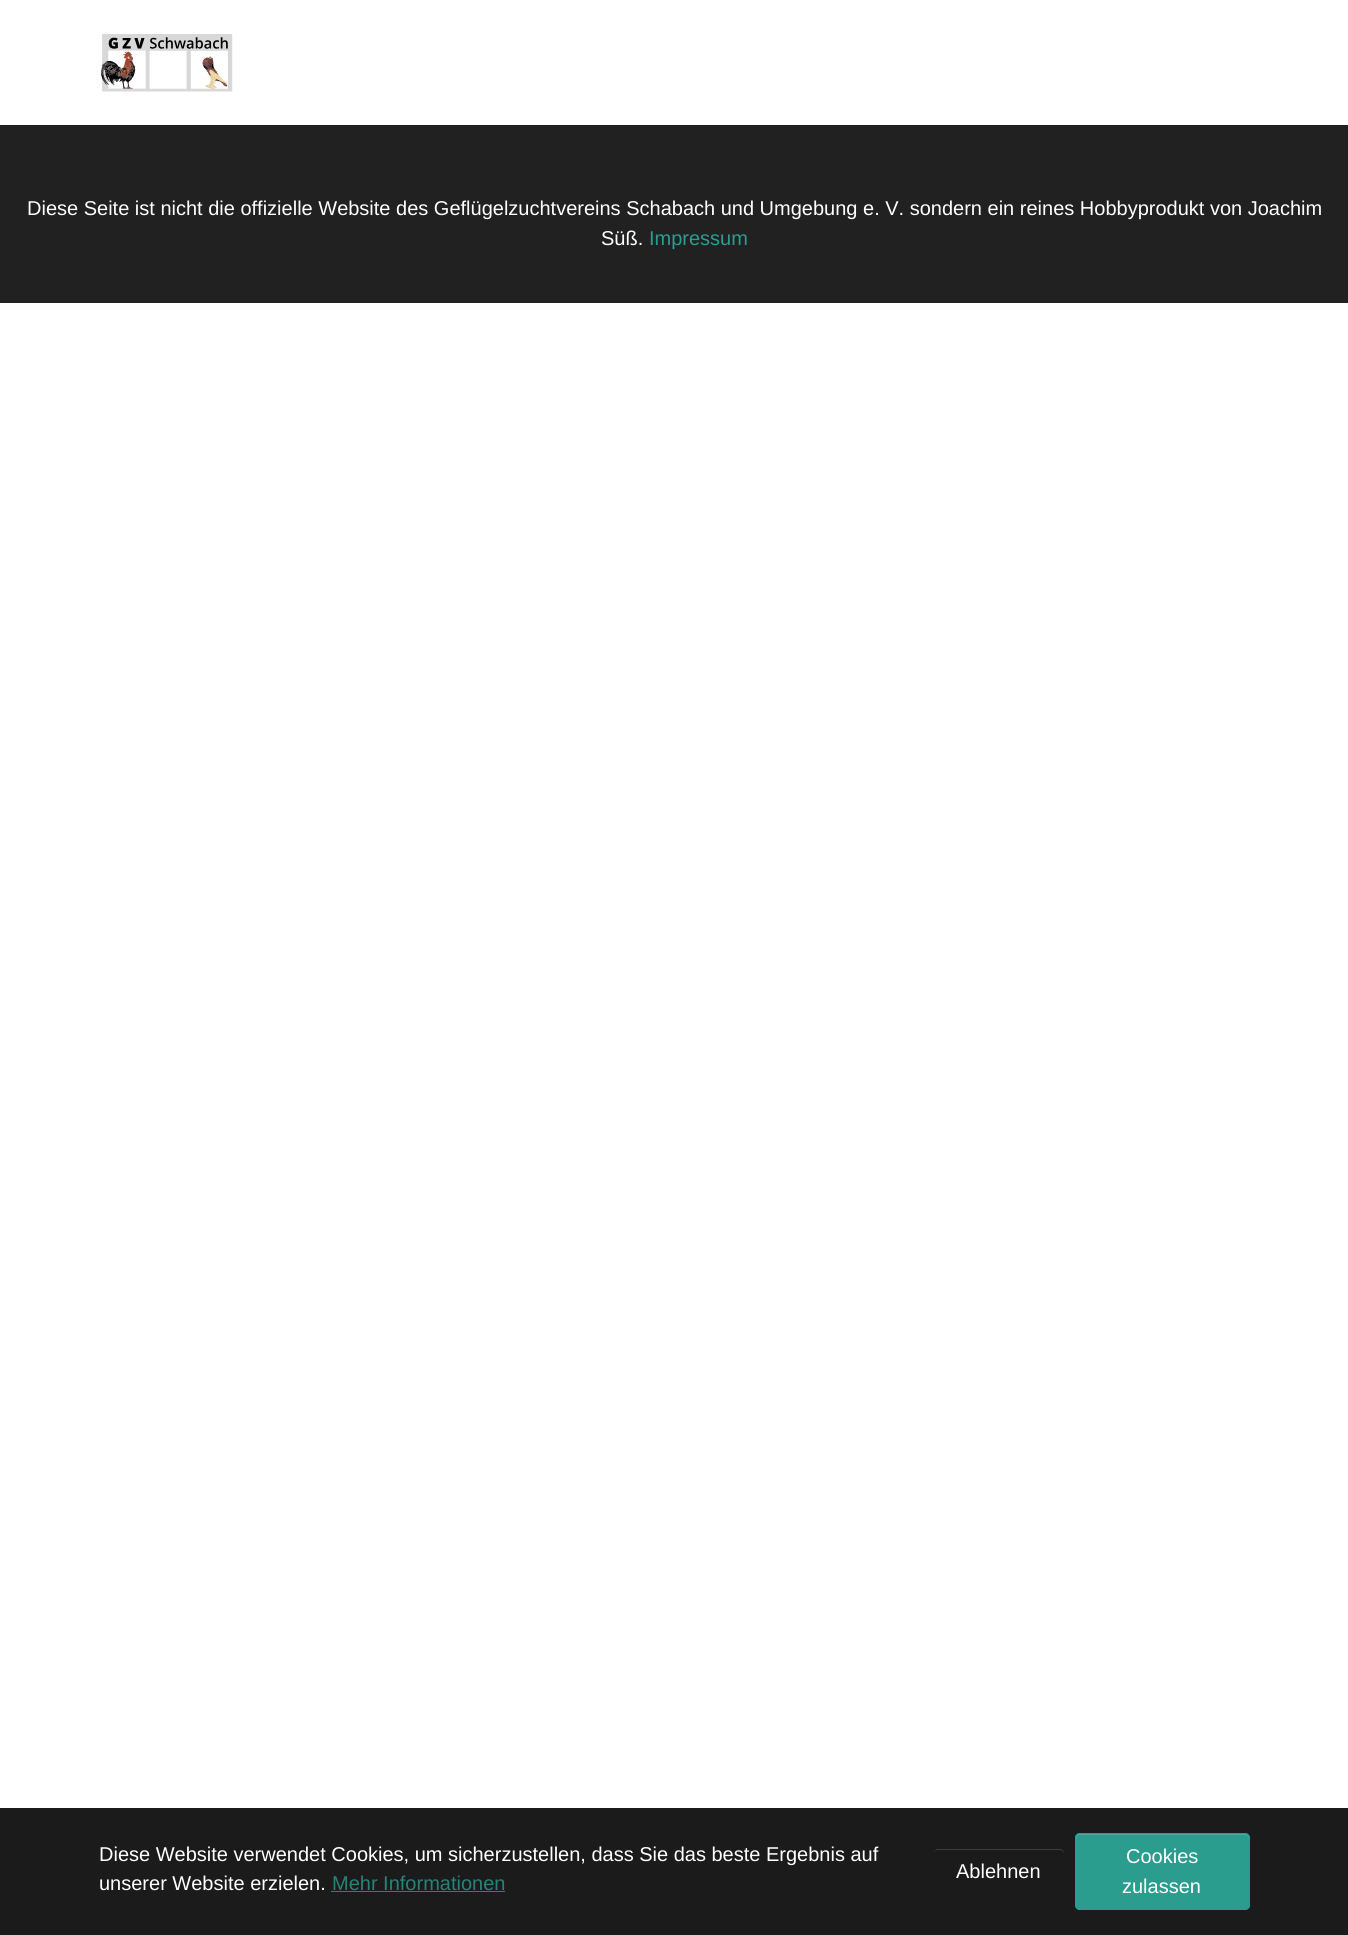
#include <cairo/cairo.h>
#include <math.h>
#include <stddef.h>


static void rounded_rect(cairo_t *cr, double x, double y, double w, double h, double r) {
  cairo_new_sub_path(cr);
  cairo_arc(cr, x + w - r, y + h - r, r, 0, M_PI / 2);
  cairo_arc(cr, x + r, y + h - r, r, M_PI / 2, M_PI);
  cairo_arc(cr, x + r, y + r, r, M_PI, 1.5 * M_PI);
  cairo_arc(cr, x + w - r, y + r, r, 1.5 * M_PI, 2 * M_PI);
  cairo_close_path(cr);
}

static void draw_image(cairo_t *cr, const char *path, double x, double y, double w, double h) {
  cairo_surface_t *image = cairo_image_surface_create_from_png(path);
  cairo_save(cr);
  cairo_set_source_surface(cr, image, x, y);
  cairo_rectangle(cr, x, y, w, h);
  cairo_fill(cr);
  cairo_restore(cr);
  cairo_surface_destroy(image);
}

static void draw(cairo_t *cr) {
  cairo_set_source_rgb(cr, 1, 1, 1);
  cairo_paint(cr);
  cairo_set_source_rgb(cr, 28 / 255.0, 28 / 255.0, 28 / 255.0);
  cairo_new_path(cr);
  cairo_move_to(cr, 0, 125);
  cairo_line_to(cr, 0, 126);
  cairo_line_to(cr, 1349, 126);
  cairo_line_to(cr, 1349, 1);
  cairo_line_to(cr, 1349, 125);
  cairo_close_path(cr);
  cairo_fill(cr);
  draw_image(cr, "images/1.png", 101, 34, 132, 58);
  cairo_set_source_rgb(cr, 33 / 255.0, 33 / 255.0, 33 / 255.0);
  cairo_rectangle(cr, 0, 126, 1348, 177);
  cairo_fill(cr);
  cairo_set_source_rgb(cr, 27 / 255.0, 27 / 255.0, 27 / 255.0);
  cairo_rectangle(cr, 0, 1808, 1348, 127);
  cairo_fill(cr);
  cairo_set_source_rgb(cr, 39 / 255.0, 131 / 255.0, 120 / 255.0);
  cairo_rectangle(cr, 331, 1891, 174, 1);
  cairo_fill(cr);
  cairo_set_source_rgb(cr, 61 / 255.0, 61 / 255.0, 61 / 255.0);
  cairo_new_path(cr);
  cairo_move_to(cr, 938, 1850);
  cairo_line_to(cr, 1060, 1850);
  cairo_curve_to(cr, 1062, 1850, 1064, 1852, 1064, 1854);
  cairo_line_to(cr, 1064, 1853);
  cairo_curve_to(cr, 1064, 1851, 1062, 1849, 1060, 1849);
  cairo_line_to(cr, 938, 1849);
  cairo_curve_to(cr, 936, 1849, 934, 1851, 934, 1853);
  cairo_line_to(cr, 934, 1854);
  cairo_curve_to(cr, 934, 1852, 935, 1850, 938, 1850);
  cairo_close_path(cr);
  cairo_fill(cr);
  cairo_set_source_rgb(cr, 42 / 255.0, 157 / 255.0, 143 / 255.0);
  rounded_rect(cr, 1075, 1833, 175, 77, 5);
  cairo_fill(cr);
  cairo_set_source_rgb(cr, 74 / 255.0, 172 / 255.0, 160 / 255.0);
  cairo_new_path(cr);
  cairo_move_to(cr, 1080, 1835);
  cairo_line_to(cr, 1245, 1835);
  cairo_curve_to(cr, 1247, 1835, 1249, 1837, 1249, 1839);
  cairo_line_to(cr, 1249, 1838);
  cairo_curve_to(cr, 1249, 1836, 1247, 1834, 1245, 1834);
  cairo_line_to(cr, 1080, 1834);
  cairo_curve_to(cr, 1078, 1834, 1076, 1836, 1076, 1838);
  cairo_line_to(cr, 1076, 1839);
  cairo_curve_to(cr, 1076, 1837, 1078, 1835, 1080, 1835);
  cairo_close_path(cr);
  cairo_fill(cr);
  rounded_rect(cr, 1075.5, 1833.5, 174, 76, 4.5);
  cairo_set_source_rgb(cr, 42 / 255.0, 157 / 255.0, 143 / 255.0);
  cairo_set_line_width(cr, 1);
  cairo_stroke(cr);
  cairo_select_font_face(cr, "Liberation Sans", CAIRO_FONT_SLANT_NORMAL, CAIRO_FONT_WEIGHT_NORMAL);
  cairo_set_font_size(cr, 20);
  cairo_set_source_rgb(cr, 1, 1, 1);
  cairo_move_to(cr, 27, 215);
  cairo_show_text(cr, "Diese Seite ist nicht die offizielle Website des Geflügelzuchtvereins Schabach und Umgebung e. V. sondern ein reines Hobbyprodukt von Joachim");
  cairo_move_to(cr, 601, 245);
  cairo_show_text(cr, "Süß.");
  cairo_set_source_rgb(cr, 42 / 255.0, 157 / 255.0, 143 / 255.0);
  cairo_move_to(cr, 649, 245);
  cairo_show_text(cr, "Impressum");
  cairo_set_source_rgb(cr, 1, 1, 1);
  cairo_move_to(cr, 99, 1861);
  cairo_show_text(cr, "Diese Website verwendet Cookies, um sicherzustellen, dass Sie das beste Ergebnis auf");
  cairo_move_to(cr, 99, 1890);
  cairo_show_text(cr, "unserer Website erzielen.");
  cairo_set_source_rgb(cr, 39 / 255.0, 131 / 255.0, 120 / 255.0);
  cairo_move_to(cr, 332, 1890);
  cairo_show_text(cr, "Mehr Informationen");
  cairo_set_source_rgb(cr, 1, 1, 1);
  cairo_move_to(cr, 956, 1878);
  cairo_show_text(cr, "Ablehnen");
  cairo_move_to(cr, 1126, 1863);
  cairo_show_text(cr, "Cookies");
  cairo_move_to(cr, 1122, 1893);
  cairo_show_text(cr, "zulassen");
}

int main(void) {
  cairo_surface_t *surface = cairo_image_surface_create(CAIRO_FORMAT_RGB24, 1348, 1935);
  cairo_t *cr = cairo_create(surface);
  cairo_font_options_t *options = cairo_font_options_create();
  cairo_font_options_set_hint_metrics(options, CAIRO_HINT_METRICS_OFF);
  cairo_font_options_set_hint_style(options, CAIRO_HINT_STYLE_NONE);
  cairo_set_font_options(cr, options);
  cairo_set_miter_limit(cr, 4);
  draw(cr);
  cairo_surface_write_to_png(surface, "out.png");
  cairo_font_options_destroy(options);
  cairo_destroy(cr);
  cairo_surface_destroy(surface);
  return 0;
}
